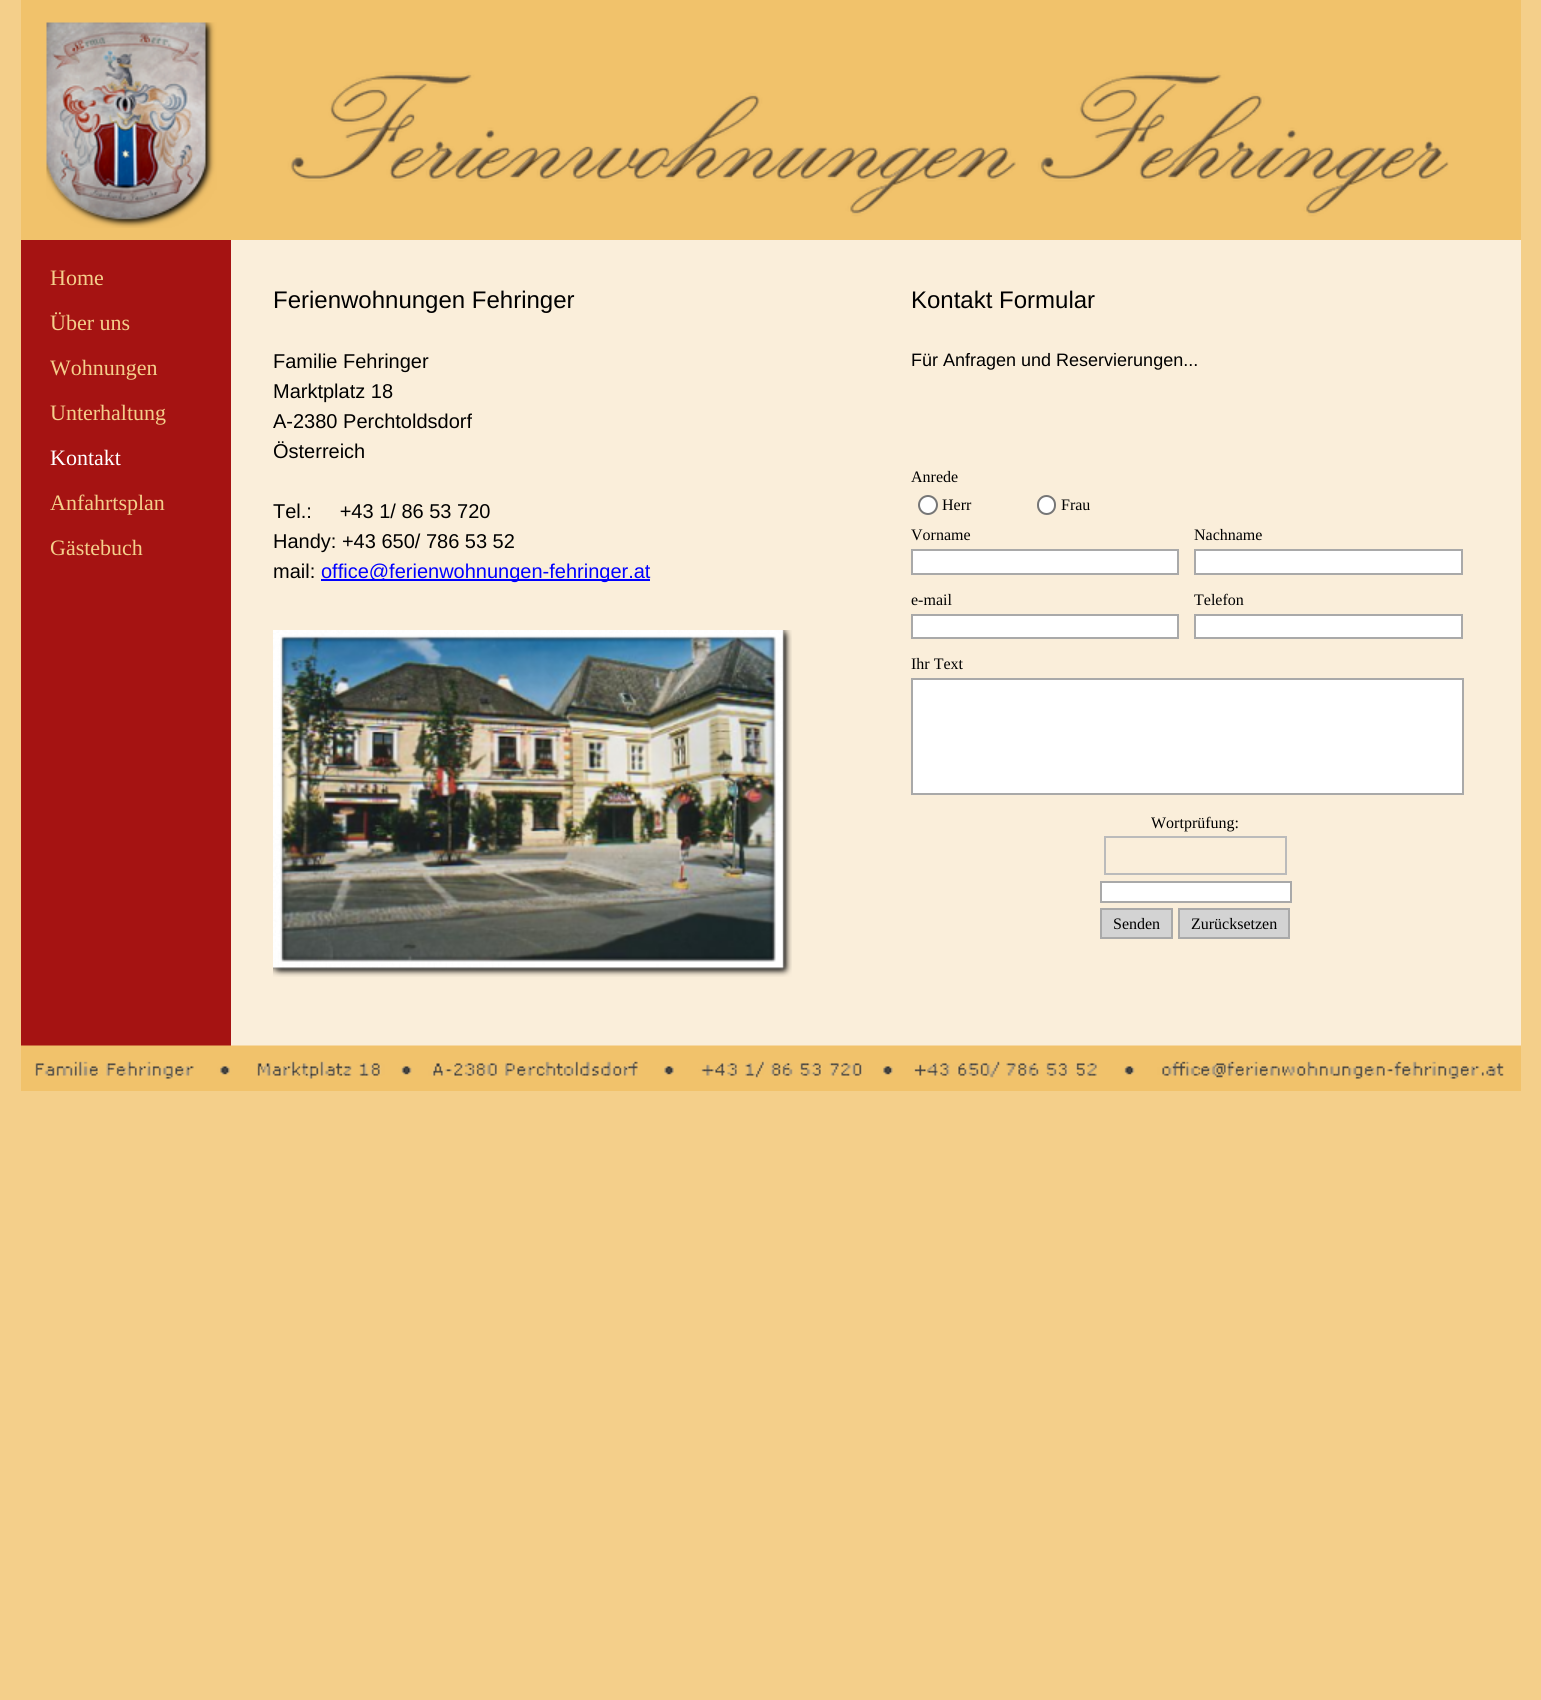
#include <cairo/cairo.h>
#include <math.h>
#include <stddef.h>


static void rounded_rect(cairo_t *cr, double x, double y, double w, double h, double r) {
  cairo_new_sub_path(cr);
  cairo_arc(cr, x + w - r, y + h - r, r, 0, M_PI / 2);
  cairo_arc(cr, x + r, y + h - r, r, M_PI / 2, M_PI);
  cairo_arc(cr, x + r, y + r, r, M_PI, 1.5 * M_PI);
  cairo_arc(cr, x + w - r, y + r, r, 1.5 * M_PI, 2 * M_PI);
  cairo_close_path(cr);
}

static void draw_image(cairo_t *cr, const char *path, double x, double y, double w, double h) {
  cairo_surface_t *image = cairo_image_surface_create_from_png(path);
  cairo_save(cr);
  cairo_set_source_surface(cr, image, x, y);
  cairo_rectangle(cr, x, y, w, h);
  cairo_fill(cr);
  cairo_restore(cr);
  cairo_surface_destroy(image);
}

static void draw(cairo_t *cr) {
  cairo_set_source_rgb(cr, 244 / 255.0, 207 / 255.0, 138 / 255.0);
  cairo_paint(cr);
  cairo_set_source_rgb(cr, 241 / 255.0, 194 / 255.0, 107 / 255.0);
  cairo_rectangle(cr, 21, 0, 1500, 240);
  cairo_fill(cr);
  draw_image(cr, "images/1.png", 46, 22, 1403, 206);
  cairo_set_source_rgb(cr, 165 / 255.0, 19 / 255.0, 18 / 255.0);
  cairo_rectangle(cr, 21, 240, 210, 806);
  cairo_fill(cr);
  cairo_set_source_rgb(cr, 250 / 255.0, 238 / 255.0, 218 / 255.0);
  cairo_rectangle(cr, 231, 240, 1290, 806);
  cairo_fill(cr);
  cairo_set_source_rgb(cr, 0, 0, 1);
  cairo_rectangle(cr, 321, 579, 329, 2);
  cairo_fill(cr);
  draw_image(cr, "images/2.png", 273, 630, 519, 347);
  cairo_set_source_rgb(cr, 1, 1, 1);
  cairo_arc(cr, 928, 505, 9, 0, 2 * M_PI);
  cairo_fill_preserve(cr);
  cairo_set_source_rgb(cr, 118 / 255.0, 118 / 255.0, 118 / 255.0);
  cairo_stroke(cr);
  cairo_set_source_rgb(cr, 1, 1, 1);
  rounded_rect(cr, 1038, 496, 17, 18, 8.5);
  cairo_fill_preserve(cr);
  cairo_set_source_rgb(cr, 118 / 255.0, 118 / 255.0, 118 / 255.0);
  cairo_stroke(cr);
  cairo_set_source_rgb(cr, 1, 1, 1);
  cairo_rectangle(cr, 912, 550, 266, 24);
  cairo_fill_preserve(cr);
  cairo_set_source_rgb(cr, 169 / 255.0, 169 / 255.0, 169 / 255.0);
  cairo_stroke(cr);
  cairo_set_source_rgb(cr, 1, 1, 1);
  cairo_rectangle(cr, 1195, 550, 267, 24);
  cairo_fill_preserve(cr);
  cairo_set_source_rgb(cr, 169 / 255.0, 169 / 255.0, 169 / 255.0);
  cairo_stroke(cr);
  cairo_set_source_rgb(cr, 1, 1, 1);
  cairo_rectangle(cr, 912, 615, 266, 23);
  cairo_fill_preserve(cr);
  cairo_set_source_rgb(cr, 169 / 255.0, 169 / 255.0, 169 / 255.0);
  cairo_stroke(cr);
  cairo_set_source_rgb(cr, 1, 1, 1);
  cairo_rectangle(cr, 1195, 615, 267, 23);
  cairo_fill_preserve(cr);
  cairo_set_source_rgb(cr, 169 / 255.0, 169 / 255.0, 169 / 255.0);
  cairo_stroke(cr);
  cairo_set_source_rgb(cr, 1, 1, 1);
  cairo_rectangle(cr, 912, 679, 551, 115);
  cairo_fill_preserve(cr);
  cairo_set_source_rgb(cr, 169 / 255.0, 169 / 255.0, 169 / 255.0);
  cairo_stroke(cr);
  cairo_rectangle(cr, 1105, 837, 181, 37);
  cairo_set_source_rgb(cr, 187 / 255.0, 187 / 255.0, 187 / 255.0);
  cairo_stroke(cr);
  cairo_set_source_rgb(cr, 1, 1, 1);
  cairo_rectangle(cr, 1101, 882, 190, 20);
  cairo_fill_preserve(cr);
  cairo_set_source_rgb(cr, 169 / 255.0, 169 / 255.0, 169 / 255.0);
  cairo_stroke(cr);
  cairo_set_source_rgb(cr, 211 / 255.0, 211 / 255.0, 211 / 255.0);
  cairo_rectangle(cr, 1101, 909, 71, 29);
  cairo_fill_preserve(cr);
  cairo_set_source_rgb(cr, 169 / 255.0, 169 / 255.0, 169 / 255.0);
  cairo_stroke(cr);
  cairo_set_source_rgb(cr, 211 / 255.0, 211 / 255.0, 211 / 255.0);
  cairo_rectangle(cr, 1179, 909, 110, 29);
  cairo_fill_preserve(cr);
  cairo_set_source_rgb(cr, 169 / 255.0, 169 / 255.0, 169 / 255.0);
  cairo_stroke(cr);
  cairo_set_source_rgb(cr, 241 / 255.0, 194 / 255.0, 107 / 255.0);
  cairo_rectangle(cr, 21, 1079, 1500, 12);
  cairo_fill(cr);
  draw_image(cr, "images/3.png", 21, 1045, 1500, 34);
  cairo_select_font_face(cr, "Liberation Serif", CAIRO_FONT_SLANT_NORMAL, CAIRO_FONT_WEIGHT_NORMAL);
  cairo_set_font_size(cr, 22);
  cairo_set_source_rgb(cr, 244 / 255.0, 207 / 255.0, 139 / 255.0);
  cairo_move_to(cr, 50, 285);
  cairo_show_text(cr, "Home");
  cairo_move_to(cr, 50, 330);
  cairo_show_text(cr, "Über uns");
  cairo_move_to(cr, 50, 375);
  cairo_show_text(cr, "Wohnungen");
  cairo_move_to(cr, 50, 420);
  cairo_show_text(cr, "Unterhaltung");
  cairo_set_source_rgb(cr, 1, 1, 1);
  cairo_move_to(cr, 50, 465);
  cairo_show_text(cr, "Kontakt");
  cairo_set_source_rgb(cr, 244 / 255.0, 207 / 255.0, 139 / 255.0);
  cairo_move_to(cr, 50, 510);
  cairo_show_text(cr, "Anfahrtsplan");
  cairo_move_to(cr, 50, 555);
  cairo_show_text(cr, "Gästebuch");
  cairo_select_font_face(cr, "Liberation Sans", CAIRO_FONT_SLANT_NORMAL, CAIRO_FONT_WEIGHT_NORMAL);
  cairo_set_font_size(cr, 24);
  cairo_set_source_rgb(cr, 0, 0, 0);
  cairo_move_to(cr, 273, 308);
  cairo_show_text(cr, "Ferienwohnungen Fehringer");
  cairo_set_font_size(cr, 20);
  cairo_move_to(cr, 273, 368);
  cairo_show_text(cr, "Familie Fehringer");
  cairo_move_to(cr, 273, 398);
  cairo_show_text(cr, "Marktplatz 18");
  cairo_move_to(cr, 273, 428);
  cairo_show_text(cr, "A-2380 Perchtoldsdorf");
  cairo_move_to(cr, 273, 458);
  cairo_show_text(cr, "Österreich");
  cairo_move_to(cr, 273, 518);
  cairo_show_text(cr, "Tel.:     +43 1/ 86 53 720");
  cairo_move_to(cr, 273, 548);
  cairo_show_text(cr, "Handy: +43 650/ 786 53 52");
  cairo_move_to(cr, 273, 578);
  cairo_show_text(cr, "mail:");
  cairo_set_source_rgb(cr, 0, 0, 1);
  cairo_move_to(cr, 321, 578);
  cairo_show_text(cr, "office@ferienwohnungen-fehringer.at");
  cairo_set_font_size(cr, 24);
  cairo_set_source_rgb(cr, 0, 0, 0);
  cairo_move_to(cr, 911, 308);
  cairo_show_text(cr, "Kontakt Formular");
  cairo_set_font_size(cr, 18);
  cairo_move_to(cr, 911, 366);
  cairo_show_text(cr, "Für Anfragen und Reservierungen...");
  cairo_select_font_face(cr, "Liberation Serif", CAIRO_FONT_SLANT_NORMAL, CAIRO_FONT_WEIGHT_NORMAL);
  cairo_set_font_size(cr, 16);
  cairo_move_to(cr, 911, 482);
  cairo_show_text(cr, "Anrede");
  cairo_move_to(cr, 942, 510);
  cairo_show_text(cr, "Herr");
  cairo_move_to(cr, 1061, 510);
  cairo_show_text(cr, "Frau");
  cairo_move_to(cr, 911, 540);
  cairo_show_text(cr, "Vorname");
  cairo_move_to(cr, 1194, 540);
  cairo_show_text(cr, "Nachname");
  cairo_move_to(cr, 911, 605);
  cairo_show_text(cr, "e-mail");
  cairo_move_to(cr, 1194, 605);
  cairo_show_text(cr, "Telefon");
  cairo_move_to(cr, 911, 669);
  cairo_show_text(cr, "Ihr Text");
  cairo_move_to(cr, 1151, 828);
  cairo_show_text(cr, "Wortprüfung:");
  cairo_move_to(cr, 1113, 929);
  cairo_show_text(cr, "Senden");
  cairo_move_to(cr, 1191, 929);
  cairo_show_text(cr, "Zurücksetzen");
}

int main(void) {
  cairo_surface_t *surface = cairo_image_surface_create(CAIRO_FORMAT_RGB24, 1541, 1700);
  cairo_t *cr = cairo_create(surface);
  cairo_font_options_t *options = cairo_font_options_create();
  cairo_font_options_set_hint_metrics(options, CAIRO_HINT_METRICS_OFF);
  cairo_font_options_set_hint_style(options, CAIRO_HINT_STYLE_NONE);
  cairo_set_font_options(cr, options);
  cairo_set_miter_limit(cr, 4);
  draw(cr);
  cairo_surface_write_to_png(surface, "out.png");
  cairo_font_options_destroy(options);
  cairo_destroy(cr);
  cairo_surface_destroy(surface);
  return 0;
}
